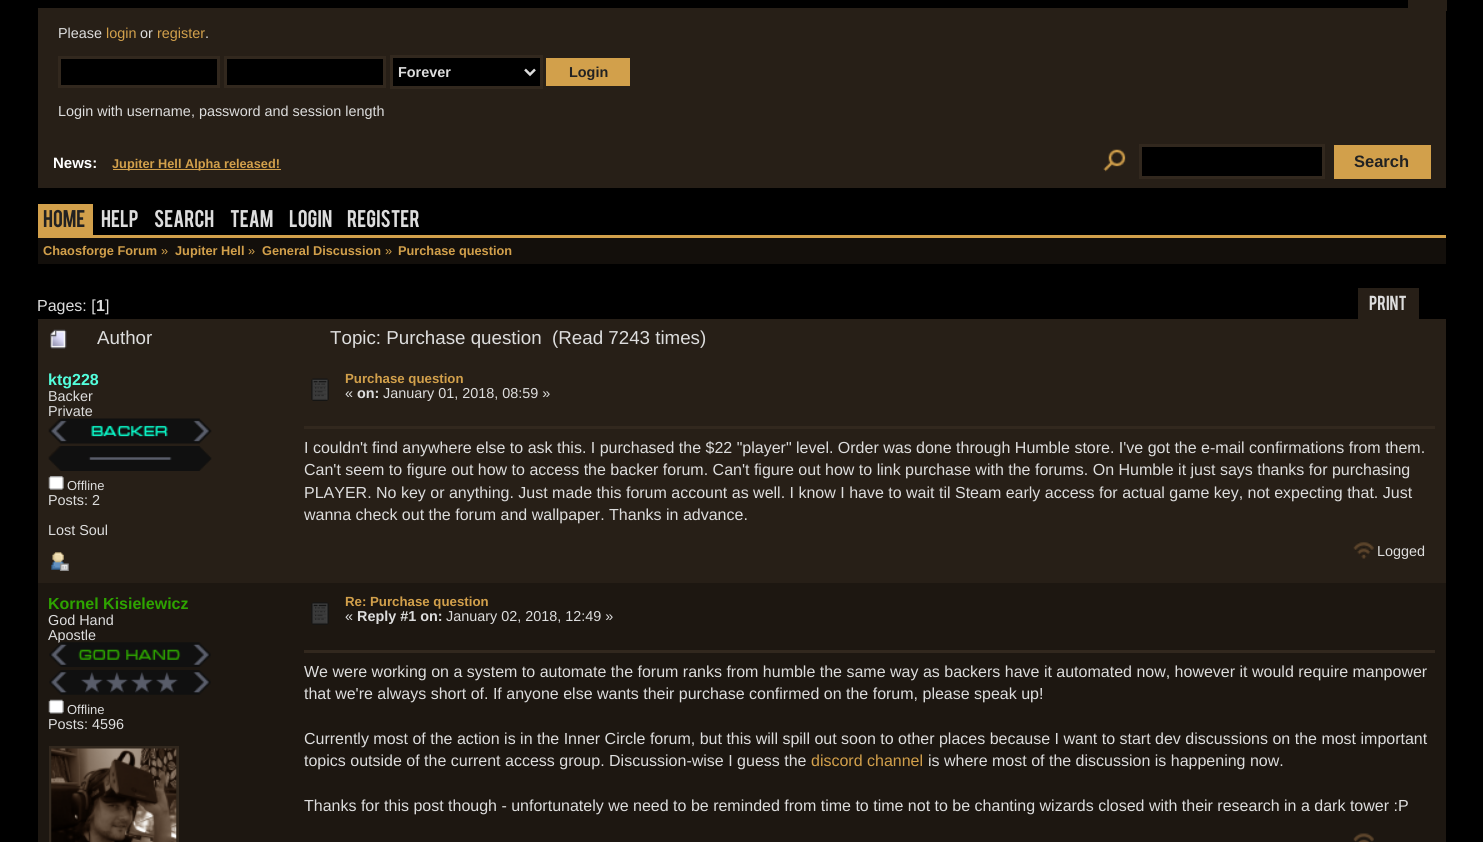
#include <cairo/cairo.h>
#include <math.h>
#include <stddef.h>


static void draw_image(cairo_t *cr, const char *path, double x, double y, double w, double h) {
  cairo_surface_t *image = cairo_image_surface_create_from_png(path);
  cairo_save(cr);
  cairo_set_source_surface(cr, image, x, y);
  cairo_rectangle(cr, x, y, w, h);
  cairo_fill(cr);
  cairo_restore(cr);
  cairo_surface_destroy(image);
}

static void draw(cairo_t *cr) {
  cairo_set_source_rgb(cr, 0, 0, 0);
  cairo_paint(cr);
  cairo_set_source_rgb(cr, 39 / 255.0, 31 / 255.0, 23 / 255.0);
  cairo_rectangle(cr, 38, 8, 1408, 180);
  cairo_fill(cr);
  cairo_rectangle(cr, 1408, 0, 39, 11);
  cairo_fill(cr);
  cairo_set_source_rgb(cr, 0, 0, 0);
  cairo_rectangle(cr, 59.5, 57.5, 159, 29);
  cairo_fill_preserve(cr);
  cairo_set_source_rgb(cr, 50 / 255.0, 40 / 255.0, 30 / 255.0);
  cairo_set_line_width(cr, 3);
  cairo_stroke(cr);
  cairo_set_source_rgb(cr, 0, 0, 0);
  cairo_rectangle(cr, 225.5, 57.5, 159, 29);
  cairo_fill_preserve(cr);
  cairo_set_source_rgb(cr, 50 / 255.0, 40 / 255.0, 30 / 255.0);
  cairo_stroke(cr);
  cairo_set_source_rgb(cr, 0, 0, 0);
  cairo_rectangle(cr, 391.5, 56.5, 150, 31);
  cairo_fill_preserve(cr);
  cairo_set_source_rgb(cr, 50 / 255.0, 40 / 255.0, 30 / 255.0);
  cairo_stroke(cr);
  cairo_new_path(cr);
  cairo_move_to(cr, 525, 69.5);
  cairo_line_to(cr, 530, 74.5);
  cairo_line_to(cr, 535, 69.5);
  cairo_set_source_rgb(cr, 221 / 255.0, 221 / 255.0, 221 / 255.0);
  cairo_set_line_width(cr, 2.5);
  cairo_stroke(cr);
  cairo_set_source_rgb(cr, 210 / 255.0, 160 / 255.0, 75 / 255.0);
  cairo_rectangle(cr, 546, 58, 84, 28);
  cairo_fill(cr);
  cairo_rectangle(cr, 113, 169, 168, 1);
  cairo_fill(cr);
  draw_image(cr, "images/1.png", 1103, 149, 23, 23);
  cairo_set_source_rgb(cr, 0, 0, 0);
  cairo_rectangle(cr, 1140.5, 145.5, 183, 32);
  cairo_fill_preserve(cr);
  cairo_set_source_rgb(cr, 50 / 255.0, 40 / 255.0, 30 / 255.0);
  cairo_set_line_width(cr, 3);
  cairo_stroke(cr);
  cairo_set_source_rgb(cr, 210 / 255.0, 160 / 255.0, 75 / 255.0);
  cairo_rectangle(cr, 1334, 145, 97, 34);
  cairo_fill(cr);
  cairo_rectangle(cr, 38, 235, 1408, 3);
  cairo_fill(cr);
  cairo_rectangle(cr, 38, 204, 55, 31);
  cairo_fill(cr);
  cairo_set_source_rgb(cr, 19 / 255.0, 15 / 255.0, 11 / 255.0);
  cairo_rectangle(cr, 38, 238, 1408, 26);
  cairo_fill(cr);
  cairo_set_source_rgb(cr, 39 / 255.0, 31 / 255.0, 23 / 255.0);
  cairo_rectangle(cr, 1358, 288, 61, 31);
  cairo_fill(cr);
  cairo_rectangle(cr, 38, 319, 1408, 264);
  cairo_fill(cr);
  draw_image(cr, "images/2.png", 50, 329, 17, 20);
  draw_image(cr, "images/3.png", 48, 418, 164, 26);
  draw_image(cr, "images/4.png", 48, 446, 164, 25);
  draw_image(cr, "images/5.png", 48, 476, 16, 14);
  draw_image(cr, "images/6.png", 51, 552, 18, 19);
  draw_image(cr, "images/7.png", 311, 378, 18, 23);
  cairo_set_source_rgb(cr, 50 / 255.0, 40 / 255.0, 30 / 255.0);
  cairo_rectangle(cr, 304, 426, 1131, 3);
  cairo_fill(cr);
  draw_image(cr, "images/8.png", 1353, 542, 21, 17);
  cairo_set_source_rgb(cr, 29 / 255.0, 23 / 255.0, 17 / 255.0);
  cairo_rectangle(cr, 38, 583, 1408, 259);
  cairo_fill(cr);
  draw_image(cr, "images/10.png", 49, 670, 162, 25);
  draw_image(cr, "images/11.png", 48, 699, 16, 15);
  cairo_rectangle(cr, 50.5, 747.5, 127, 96);
  cairo_set_source_rgb(cr, 50 / 255.0, 40 / 255.0, 30 / 255.0);
  cairo_stroke(cr);
  draw_image(cr, "images/12.png", 51, 748, 126, 94);
  draw_image(cr, "images/13.png", 311, 602, 18, 23);
  cairo_rectangle(cr, 304, 650, 1131, 3);
  cairo_fill(cr);
  draw_image(cr, "images/14.png", 1353, 833, 21, 9);
  cairo_select_font_face(cr, "Liberation Sans", CAIRO_FONT_SLANT_NORMAL, CAIRO_FONT_WEIGHT_NORMAL);
  cairo_set_font_size(cr, 14.4);
  cairo_set_source_rgb(cr, 221 / 255.0, 221 / 255.0, 221 / 255.0);
  cairo_move_to(cr, 58, 38);
  cairo_show_text(cr, "Please");
  cairo_set_source_rgb(cr, 210 / 255.0, 160 / 255.0, 75 / 255.0);
  cairo_move_to(cr, 106, 38);
  cairo_show_text(cr, "login");
  cairo_set_source_rgb(cr, 221 / 255.0, 221 / 255.0, 221 / 255.0);
  cairo_move_to(cr, 140, 38);
  cairo_show_text(cr, "or");
  cairo_set_source_rgb(cr, 210 / 255.0, 160 / 255.0, 75 / 255.0);
  cairo_move_to(cr, 157, 38);
  cairo_show_text(cr, "register");
  cairo_set_source_rgb(cr, 221 / 255.0, 221 / 255.0, 221 / 255.0);
  cairo_move_to(cr, 205, 38);
  cairo_show_text(cr, ".");
  cairo_select_font_face(cr, "Liberation Sans", CAIRO_FONT_SLANT_NORMAL, CAIRO_FONT_WEIGHT_BOLD);
  cairo_move_to(cr, 398, 77);
  cairo_show_text(cr, "Forever");
  cairo_set_source_rgb(cr, 34 / 255.0, 34 / 255.0, 34 / 255.0);
  cairo_move_to(cr, 569, 77);
  cairo_show_text(cr, "Login");
  cairo_select_font_face(cr, "Liberation Sans", CAIRO_FONT_SLANT_NORMAL, CAIRO_FONT_WEIGHT_NORMAL);
  cairo_set_source_rgb(cr, 221 / 255.0, 221 / 255.0, 221 / 255.0);
  cairo_move_to(cr, 58, 116);
  cairo_show_text(cr, "Login with username, password and session length");
  cairo_select_font_face(cr, "Liberation Sans", CAIRO_FONT_SLANT_NORMAL, CAIRO_FONT_WEIGHT_BOLD);
  cairo_set_font_size(cr, 15);
  cairo_set_source_rgb(cr, 1, 1, 1);
  cairo_move_to(cr, 53, 168);
  cairo_show_text(cr, "News:");
  cairo_set_font_size(cr, 12.75);
  cairo_set_source_rgb(cr, 210 / 255.0, 160 / 255.0, 75 / 255.0);
  cairo_move_to(cr, 112, 168);
  cairo_show_text(cr, "Jupiter Hell Alpha released!");
  cairo_set_font_size(cr, 16.5);
  cairo_set_source_rgb(cr, 34 / 255.0, 34 / 255.0, 34 / 255.0);
  cairo_move_to(cr, 1354, 167);
  cairo_show_text(cr, "Search");
  cairo_select_font_face(cr, "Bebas", CAIRO_FONT_SLANT_NORMAL, CAIRO_FONT_WEIGHT_NORMAL);
  cairo_set_font_size(cr, 19);
  cairo_move_to(cr, 43, 227);
  cairo_show_text(cr, "Home");
  cairo_set_source_rgb(cr, 221 / 255.0, 221 / 255.0, 221 / 255.0);
  cairo_move_to(cr, 101, 227);
  cairo_show_text(cr, "Help");
  cairo_move_to(cr, 154, 227);
  cairo_show_text(cr, "Search");
  cairo_move_to(cr, 230, 227);
  cairo_show_text(cr, "Team");
  cairo_move_to(cr, 289, 227);
  cairo_show_text(cr, "Login");
  cairo_move_to(cr, 347, 227);
  cairo_show_text(cr, "Register");
  cairo_select_font_face(cr, "Liberation Sans", CAIRO_FONT_SLANT_NORMAL, CAIRO_FONT_WEIGHT_BOLD);
  cairo_set_font_size(cr, 12.75);
  cairo_set_source_rgb(cr, 210 / 255.0, 160 / 255.0, 75 / 255.0);
  cairo_move_to(cr, 43, 255);
  cairo_show_text(cr, "Chaosforge Forum");
  cairo_select_font_face(cr, "Liberation Sans", CAIRO_FONT_SLANT_NORMAL, CAIRO_FONT_WEIGHT_NORMAL);
  cairo_move_to(cr, 161, 255);
  cairo_show_text(cr, "»");
  cairo_select_font_face(cr, "Liberation Sans", CAIRO_FONT_SLANT_NORMAL, CAIRO_FONT_WEIGHT_BOLD);
  cairo_move_to(cr, 175, 255);
  cairo_show_text(cr, "Jupiter Hell");
  cairo_select_font_face(cr, "Liberation Sans", CAIRO_FONT_SLANT_NORMAL, CAIRO_FONT_WEIGHT_NORMAL);
  cairo_move_to(cr, 248, 255);
  cairo_show_text(cr, "»");
  cairo_select_font_face(cr, "Liberation Sans", CAIRO_FONT_SLANT_NORMAL, CAIRO_FONT_WEIGHT_BOLD);
  cairo_move_to(cr, 262, 255);
  cairo_show_text(cr, "General Discussion");
  cairo_select_font_face(cr, "Liberation Sans", CAIRO_FONT_SLANT_NORMAL, CAIRO_FONT_WEIGHT_NORMAL);
  cairo_move_to(cr, 385, 255);
  cairo_show_text(cr, "»");
  cairo_select_font_face(cr, "Liberation Sans", CAIRO_FONT_SLANT_NORMAL, CAIRO_FONT_WEIGHT_BOLD);
  cairo_move_to(cr, 398, 255);
  cairo_show_text(cr, "Purchase question");
  cairo_select_font_face(cr, "Liberation Sans", CAIRO_FONT_SLANT_NORMAL, CAIRO_FONT_WEIGHT_NORMAL);
  cairo_set_font_size(cr, 16);
  cairo_set_source_rgb(cr, 221 / 255.0, 221 / 255.0, 221 / 255.0);
  cairo_move_to(cr, 37, 311);
  cairo_show_text(cr, "Pages: [");
  cairo_select_font_face(cr, "Liberation Sans", CAIRO_FONT_SLANT_NORMAL, CAIRO_FONT_WEIGHT_BOLD);
  cairo_move_to(cr, 96, 311);
  cairo_show_text(cr, "1");
  cairo_select_font_face(cr, "Liberation Sans", CAIRO_FONT_SLANT_NORMAL, CAIRO_FONT_WEIGHT_NORMAL);
  cairo_move_to(cr, 105, 311);
  cairo_show_text(cr, "]");
  cairo_select_font_face(cr, "Bebas", CAIRO_FONT_SLANT_NORMAL, CAIRO_FONT_WEIGHT_NORMAL);
  cairo_move_to(cr, 1369, 310);
  cairo_show_text(cr, "Print");
  cairo_select_font_face(cr, "Liberation Sans", CAIRO_FONT_SLANT_NORMAL, CAIRO_FONT_WEIGHT_NORMAL);
  cairo_set_font_size(cr, 18.75);
  cairo_move_to(cr, 97, 344);
  cairo_show_text(cr, "Author");
  cairo_move_to(cr, 330, 344);
  cairo_show_text(cr, "Topic: Purchase question  (Read 7243 times)");
  cairo_select_font_face(cr, "Liberation Sans", CAIRO_FONT_SLANT_NORMAL, CAIRO_FONT_WEIGHT_BOLD);
  cairo_set_font_size(cr, 16);
  cairo_set_source_rgb(cr, 83 / 255.0, 1, 221 / 255.0);
  cairo_move_to(cr, 48, 385);
  cairo_show_text(cr, "ktg228");
  cairo_select_font_face(cr, "Liberation Sans", CAIRO_FONT_SLANT_NORMAL, CAIRO_FONT_WEIGHT_NORMAL);
  cairo_set_font_size(cr, 14.4);
  cairo_set_source_rgb(cr, 221 / 255.0, 221 / 255.0, 221 / 255.0);
  cairo_move_to(cr, 48, 401);
  cairo_show_text(cr, "Backer");
  cairo_move_to(cr, 48, 416);
  cairo_show_text(cr, "Private");
  cairo_set_font_size(cr, 13);
  cairo_move_to(cr, 67, 490);
  cairo_show_text(cr, "Offline");
  cairo_set_font_size(cr, 14.4);
  cairo_move_to(cr, 48, 505);
  cairo_show_text(cr, "Posts: 2");
  cairo_move_to(cr, 48, 535);
  cairo_show_text(cr, "Lost Soul");
  cairo_select_font_face(cr, "Liberation Sans", CAIRO_FONT_SLANT_NORMAL, CAIRO_FONT_WEIGHT_BOLD);
  cairo_set_font_size(cr, 13.25);
  cairo_set_source_rgb(cr, 210 / 255.0, 160 / 255.0, 75 / 255.0);
  cairo_move_to(cr, 345, 383);
  cairo_show_text(cr, "Purchase question");
  cairo_select_font_face(cr, "Liberation Sans", CAIRO_FONT_SLANT_NORMAL, CAIRO_FONT_WEIGHT_NORMAL);
  cairo_set_font_size(cr, 14.4);
  cairo_set_source_rgb(cr, 221 / 255.0, 221 / 255.0, 221 / 255.0);
  cairo_move_to(cr, 345, 398);
  cairo_show_text(cr, "«");
  cairo_select_font_face(cr, "Liberation Sans", CAIRO_FONT_SLANT_NORMAL, CAIRO_FONT_WEIGHT_BOLD);
  cairo_move_to(cr, 357, 398);
  cairo_show_text(cr, "on:");
  cairo_select_font_face(cr, "Liberation Sans", CAIRO_FONT_SLANT_NORMAL, CAIRO_FONT_WEIGHT_NORMAL);
  cairo_move_to(cr, 383, 398);
  cairo_show_text(cr, "January 01, 2018, 08:59 »");
  cairo_set_font_size(cr, 16);
  cairo_move_to(cr, 304, 453);
  cairo_show_text(cr, "I couldn't find anywhere else to ask this. I purchased the $22 \"player\" level. Order was done through Humble store. I've got the e-mail confirmations from them.");
  cairo_move_to(cr, 304, 475);
  cairo_show_text(cr, "Can't seem to figure out how to access the backer forum. Can't figure out how to link purchase with the forums. On Humble it just says thanks for purchasing");
  cairo_move_to(cr, 304, 498);
  cairo_show_text(cr, "PLAYER. No key or anything. Just made this forum account as well. I know I have to wait til Steam early access for actual game key, not expecting that. Just");
  cairo_move_to(cr, 304, 520);
  cairo_show_text(cr, "wanna check out the forum and wallpaper. Thanks in advance.");
  cairo_set_font_size(cr, 14.4);
  cairo_move_to(cr, 1377, 556);
  cairo_show_text(cr, "Logged");
  cairo_select_font_face(cr, "Liberation Sans", CAIRO_FONT_SLANT_NORMAL, CAIRO_FONT_WEIGHT_BOLD);
  cairo_set_font_size(cr, 16);
  cairo_set_source_rgb(cr, 46 / 255.0, 164 / 255.0, 0);
  cairo_move_to(cr, 48, 609);
  cairo_show_text(cr, "Kornel Kisielewicz");
  cairo_select_font_face(cr, "Liberation Sans", CAIRO_FONT_SLANT_NORMAL, CAIRO_FONT_WEIGHT_NORMAL);
  cairo_set_font_size(cr, 14.4);
  cairo_set_source_rgb(cr, 221 / 255.0, 221 / 255.0, 221 / 255.0);
  cairo_move_to(cr, 48, 625);
  cairo_show_text(cr, "God Hand");
  cairo_move_to(cr, 48, 640);
  cairo_show_text(cr, "Apostle");
  draw_image(cr, "images/9.png", 49, 642, 162, 25);
  cairo_set_font_size(cr, 13);
  cairo_move_to(cr, 67, 714);
  cairo_show_text(cr, "Offline");
  cairo_set_font_size(cr, 14.4);
  cairo_move_to(cr, 48, 729);
  cairo_show_text(cr, "Posts: 4596");
  cairo_select_font_face(cr, "Liberation Sans", CAIRO_FONT_SLANT_NORMAL, CAIRO_FONT_WEIGHT_BOLD);
  cairo_set_font_size(cr, 13.25);
  cairo_set_source_rgb(cr, 210 / 255.0, 160 / 255.0, 75 / 255.0);
  cairo_move_to(cr, 345, 606);
  cairo_show_text(cr, "Re: Purchase question");
  cairo_select_font_face(cr, "Liberation Sans", CAIRO_FONT_SLANT_NORMAL, CAIRO_FONT_WEIGHT_NORMAL);
  cairo_set_font_size(cr, 14.4);
  cairo_set_source_rgb(cr, 221 / 255.0, 221 / 255.0, 221 / 255.0);
  cairo_move_to(cr, 345, 621);
  cairo_show_text(cr, "«");
  cairo_select_font_face(cr, "Liberation Sans", CAIRO_FONT_SLANT_NORMAL, CAIRO_FONT_WEIGHT_BOLD);
  cairo_move_to(cr, 357, 621);
  cairo_show_text(cr, "Reply #1 on:");
  cairo_select_font_face(cr, "Liberation Sans", CAIRO_FONT_SLANT_NORMAL, CAIRO_FONT_WEIGHT_NORMAL);
  cairo_move_to(cr, 446, 621);
  cairo_show_text(cr, "January 02, 2018, 12:49 »");
  cairo_set_font_size(cr, 16);
  cairo_move_to(cr, 304, 677);
  cairo_show_text(cr, "We were working on a system to automate the forum ranks from humble the same way as backers have it automated now, however it would require manpower");
  cairo_move_to(cr, 304, 699);
  cairo_show_text(cr, "that we're always short of. If anyone else wants their purchase confirmed on the forum, please speak up!");
  cairo_move_to(cr, 304, 744);
  cairo_show_text(cr, "Currently most of the action is in the Inner Circle forum, but this will spill out soon to other places because I want to start dev discussions on the most important");
  cairo_move_to(cr, 304, 766);
  cairo_show_text(cr, "topics outside of the current access group. Discussion-wise I guess the");
  cairo_set_source_rgb(cr, 210 / 255.0, 160 / 255.0, 75 / 255.0);
  cairo_move_to(cr, 811, 766);
  cairo_show_text(cr, "discord channel");
  cairo_set_source_rgb(cr, 221 / 255.0, 221 / 255.0, 221 / 255.0);
  cairo_move_to(cr, 928, 766);
  cairo_show_text(cr, "is where most of the discussion is happening now.");
  cairo_move_to(cr, 304, 811);
  cairo_show_text(cr, "Thanks for this post though - unfortunately we need to be reminded from time to time not to be chanting wizards closed with their research in a dark tower :P");
}

int main(void) {
  cairo_surface_t *surface = cairo_image_surface_create(CAIRO_FORMAT_RGB24, 1483, 842);
  cairo_t *cr = cairo_create(surface);
  cairo_font_options_t *options = cairo_font_options_create();
  cairo_font_options_set_hint_metrics(options, CAIRO_HINT_METRICS_OFF);
  cairo_font_options_set_hint_style(options, CAIRO_HINT_STYLE_NONE);
  cairo_set_font_options(cr, options);
  cairo_set_miter_limit(cr, 4);
  draw(cr);
  cairo_surface_write_to_png(surface, "out.png");
  cairo_font_options_destroy(options);
  cairo_destroy(cr);
  cairo_surface_destroy(surface);
  return 0;
}
